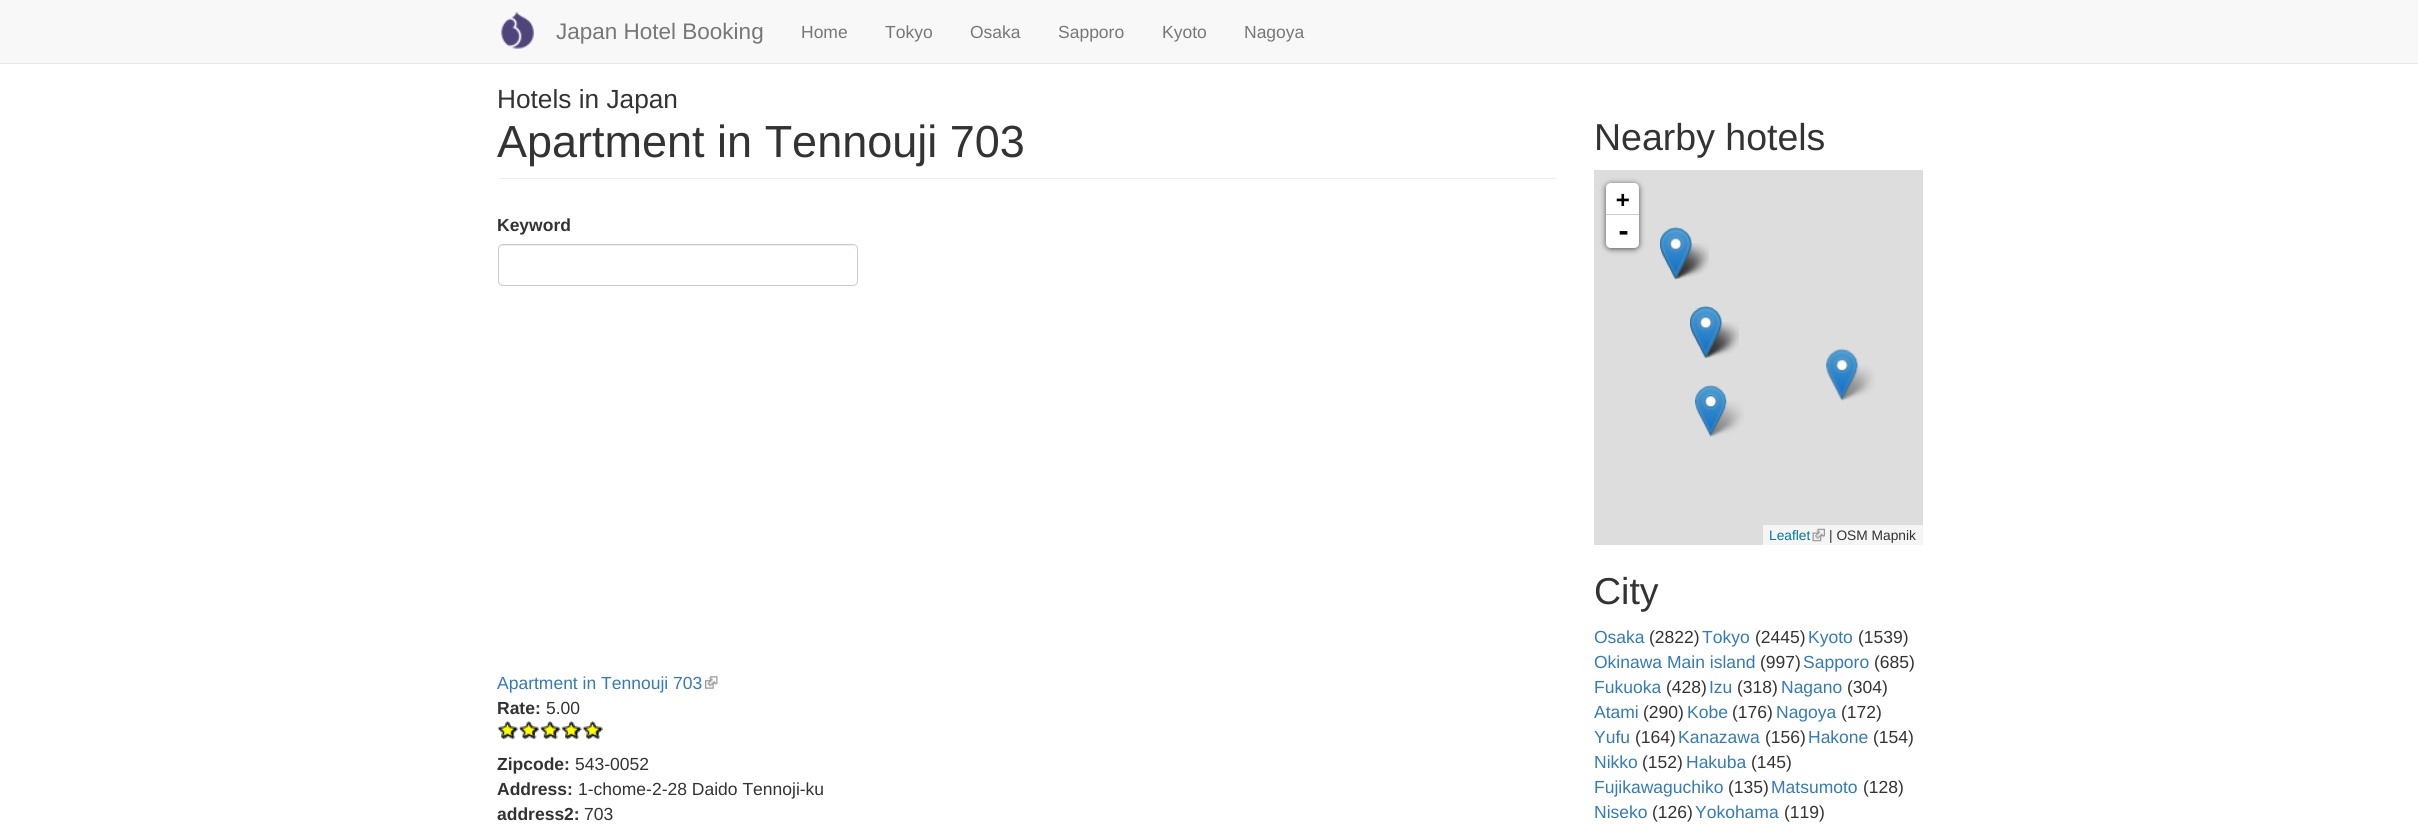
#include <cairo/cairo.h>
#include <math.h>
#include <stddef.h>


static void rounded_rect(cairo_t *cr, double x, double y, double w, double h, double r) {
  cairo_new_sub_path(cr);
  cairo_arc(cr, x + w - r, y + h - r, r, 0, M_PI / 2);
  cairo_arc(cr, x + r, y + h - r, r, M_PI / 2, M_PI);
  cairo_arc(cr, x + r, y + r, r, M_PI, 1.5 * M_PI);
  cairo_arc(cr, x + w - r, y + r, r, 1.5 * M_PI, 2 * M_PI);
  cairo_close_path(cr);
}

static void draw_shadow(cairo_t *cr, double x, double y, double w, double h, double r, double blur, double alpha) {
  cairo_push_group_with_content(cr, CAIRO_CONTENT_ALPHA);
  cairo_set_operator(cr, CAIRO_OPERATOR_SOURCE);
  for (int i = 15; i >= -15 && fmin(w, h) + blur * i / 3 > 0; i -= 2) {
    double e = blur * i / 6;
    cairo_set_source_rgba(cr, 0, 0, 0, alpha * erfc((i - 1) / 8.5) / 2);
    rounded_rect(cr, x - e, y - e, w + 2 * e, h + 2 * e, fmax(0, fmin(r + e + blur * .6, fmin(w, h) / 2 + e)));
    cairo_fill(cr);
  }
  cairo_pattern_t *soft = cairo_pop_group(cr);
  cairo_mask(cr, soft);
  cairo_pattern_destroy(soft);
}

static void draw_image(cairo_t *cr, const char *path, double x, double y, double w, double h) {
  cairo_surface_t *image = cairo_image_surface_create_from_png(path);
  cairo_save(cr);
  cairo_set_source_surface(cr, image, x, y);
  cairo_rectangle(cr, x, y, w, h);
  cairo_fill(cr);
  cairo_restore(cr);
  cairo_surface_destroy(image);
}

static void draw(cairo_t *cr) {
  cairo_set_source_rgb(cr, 1, 1, 1);
  cairo_paint(cr);
  cairo_set_source_rgb(cr, 248 / 255.0, 248 / 255.0, 248 / 255.0);
  cairo_rectangle(cr, 0, 0, 2418, 63);
  cairo_fill(cr);
  cairo_set_source_rgb(cr, 231 / 255.0, 231 / 255.0, 231 / 255.0);
  cairo_rectangle(cr, 0, 63, 2418, 1);
  cairo_fill(cr);
  draw_image(cr, "images/1.png", 501, 11, 33, 38);
  cairo_set_source_rgb(cr, 238 / 255.0, 238 / 255.0, 238 / 255.0);
  cairo_rectangle(cr, 498, 178, 1058, 1);
  cairo_fill(cr);
  cairo_set_source_rgb(cr, 236 / 255.0, 236 / 255.0, 236 / 255.0);
  cairo_new_path(cr);
  cairo_move_to(cr, 502, 246);
  cairo_line_to(cr, 854, 246);
  cairo_line_to(cr, 856, 248);
  cairo_line_to(cr, 856, 250);
  cairo_line_to(cr, 855, 247);
  cairo_line_to(cr, 853, 245);
  cairo_line_to(cr, 503, 245);
  cairo_curve_to(cr, 500, 245, 499, 247, 499, 250);
  cairo_curve_to(cr, 499, 248, 500, 246, 502, 246);
  cairo_close_path(cr);
  cairo_fill(cr);
  rounded_rect(cr, 498.5, 244.5, 359, 41, 4.5);
  cairo_set_source_rgb(cr, 204 / 255.0, 204 / 255.0, 204 / 255.0);
  cairo_set_line_width(cr, 1);
  cairo_stroke(cr);
  draw_image(cr, "images/2.png", 705, 676, 13, 13);
  draw_image(cr, "images/3.png", 497, 721, 21, 18);
  draw_image(cr, "images/4.png", 497, 721, 21, 18);
  draw_image(cr, "images/5.png", 518, 721, 21, 18);
  draw_image(cr, "images/6.png", 519, 721, 20, 18);
  draw_image(cr, "images/7.png", 540, 721, 21, 18);
  draw_image(cr, "images/8.png", 540, 721, 21, 18);
  draw_image(cr, "images/9.png", 561, 721, 21, 18);
  draw_image(cr, "images/10.png", 561, 721, 21, 18);
  draw_image(cr, "images/3.png", 582, 721, 21, 18);
  draw_image(cr, "images/4.png", 582, 721, 21, 18);
  cairo_set_source_rgb(cr, 221 / 255.0, 221 / 255.0, 221 / 255.0);
  cairo_rectangle(cr, 1594, 170, 329, 375);
  cairo_fill(cr);
  cairo_set_source_rgb(cr, 0, 0, 0);
  draw_shadow(cr, 1606, 184, 33, 65, 5, 3, 0.65);
  cairo_set_source_rgb(cr, 1, 1, 1);
  cairo_new_path(cr);
  cairo_move_to(cr, 1611, 183);
  cairo_line_to(cr, 1634, 183);
  cairo_curve_to(cr, 1637, 183, 1639, 185, 1639, 188);
  cairo_line_to(cr, 1639, 215);
  cairo_line_to(cr, 1606, 215);
  cairo_line_to(cr, 1606, 188);
  cairo_curve_to(cr, 1606, 185, 1608, 183, 1611, 183);
  cairo_close_path(cr);
  cairo_fill(cr);
  cairo_set_source_rgb(cr, 204 / 255.0, 204 / 255.0, 204 / 255.0);
  cairo_rectangle(cr, 1606, 214, 33, 1);
  cairo_fill(cr);
  cairo_set_source_rgb(cr, 1, 1, 1);
  cairo_new_path(cr);
  cairo_move_to(cr, 1606, 215);
  cairo_line_to(cr, 1639, 215);
  cairo_line_to(cr, 1639, 243);
  cairo_curve_to(cr, 1639, 246, 1637, 248, 1634, 248);
  cairo_line_to(cr, 1611, 248);
  cairo_curve_to(cr, 1608, 248, 1606, 246, 1606, 243);
  cairo_close_path(cr);
  cairo_fill(cr);
  cairo_set_source_rgb(cr, 245 / 255.0, 245 / 255.0, 245 / 255.0);
  cairo_rectangle(cr, 1763, 525, 160, 20);
  cairo_fill(cr);
  draw_image(cr, "images/11.png", 1812, 528, 13, 14);
  draw_image(cr, "images/20.png", 1671, 243, 38, 36);
  draw_image(cr, "images/21.png", 1671, 243, 38, 36);
  draw_image(cr, "images/22.png", 1671, 243, 38, 36);
  draw_image(cr, "images/12.png", 1660, 227, 32, 53);
  draw_image(cr, "images/13.png", 1660, 227, 32, 53);
  draw_image(cr, "images/14.png", 1660, 227, 32, 53);
  draw_image(cr, "images/23.png", 1701, 322, 38, 36);
  draw_image(cr, "images/24.png", 1701, 322, 38, 36);
  draw_image(cr, "images/25.png", 1701, 322, 38, 36);
  draw_image(cr, "images/15.png", 1690, 306, 32, 53);
  draw_image(cr, "images/16.png", 1690, 306, 32, 53);
  draw_image(cr, "images/17.png", 1690, 306, 32, 53);
  draw_image(cr, "images/26.png", 1837, 365, 38, 36);
  draw_image(cr, "images/18.png", 1826, 348, 33, 53);
  draw_image(cr, "images/27.png", 1706, 401, 38, 36);
  draw_image(cr, "images/19.png", 1695, 385, 32, 52);
  cairo_select_font_face(cr, "Liberation Sans", CAIRO_FONT_SLANT_NORMAL, CAIRO_FONT_WEIGHT_NORMAL);
  cairo_set_font_size(cr, 22.5);
  cairo_set_source_rgb(cr, 119 / 255.0, 119 / 255.0, 119 / 255.0);
  cairo_move_to(cr, 556, 39);
  cairo_show_text(cr, "Japan Hotel Booking");
  cairo_set_font_size(cr, 17.5);
  cairo_move_to(cr, 801, 38);
  cairo_show_text(cr, "Home");
  cairo_move_to(cr, 885, 38);
  cairo_show_text(cr, "Tokyo");
  cairo_move_to(cr, 970, 38);
  cairo_show_text(cr, "Osaka");
  cairo_move_to(cr, 1058, 38);
  cairo_show_text(cr, "Sapporo");
  cairo_move_to(cr, 1162, 38);
  cairo_show_text(cr, "Kyoto");
  cairo_move_to(cr, 1244, 38);
  cairo_show_text(cr, "Nagoya");
  cairo_set_font_size(cr, 26.25);
  cairo_set_source_rgb(cr, 51 / 255.0, 51 / 255.0, 51 / 255.0);
  cairo_move_to(cr, 497, 108);
  cairo_show_text(cr, "Hotels in Japan");
  cairo_set_font_size(cr, 45);
  cairo_move_to(cr, 497, 157);
  cairo_show_text(cr, "Apartment in Tennouji 703");
  cairo_select_font_face(cr, "Liberation Sans", CAIRO_FONT_SLANT_NORMAL, CAIRO_FONT_WEIGHT_BOLD);
  cairo_set_font_size(cr, 17.5);
  cairo_move_to(cr, 497, 231);
  cairo_show_text(cr, "Keyword");
  cairo_select_font_face(cr, "Liberation Sans", CAIRO_FONT_SLANT_NORMAL, CAIRO_FONT_WEIGHT_NORMAL);
  cairo_set_source_rgb(cr, 51 / 255.0, 122 / 255.0, 183 / 255.0);
  cairo_move_to(cr, 497, 689);
  cairo_show_text(cr, "Apartment in Tennouji 703");
  cairo_select_font_face(cr, "Liberation Sans", CAIRO_FONT_SLANT_NORMAL, CAIRO_FONT_WEIGHT_BOLD);
  cairo_set_source_rgb(cr, 51 / 255.0, 51 / 255.0, 51 / 255.0);
  cairo_move_to(cr, 497, 714);
  cairo_show_text(cr, "Rate:");
  cairo_select_font_face(cr, "Liberation Sans", CAIRO_FONT_SLANT_NORMAL, CAIRO_FONT_WEIGHT_NORMAL);
  cairo_move_to(cr, 546, 714);
  cairo_show_text(cr, "5.00");
  cairo_select_font_face(cr, "Liberation Sans", CAIRO_FONT_SLANT_NORMAL, CAIRO_FONT_WEIGHT_BOLD);
  cairo_move_to(cr, 497, 770);
  cairo_show_text(cr, "Zipcode:");
  cairo_select_font_face(cr, "Liberation Sans", CAIRO_FONT_SLANT_NORMAL, CAIRO_FONT_WEIGHT_NORMAL);
  cairo_move_to(cr, 575, 770);
  cairo_show_text(cr, "543-0052");
  cairo_select_font_face(cr, "Liberation Sans", CAIRO_FONT_SLANT_NORMAL, CAIRO_FONT_WEIGHT_BOLD);
  cairo_move_to(cr, 497, 795);
  cairo_show_text(cr, "Address:");
  cairo_select_font_face(cr, "Liberation Sans", CAIRO_FONT_SLANT_NORMAL, CAIRO_FONT_WEIGHT_NORMAL);
  cairo_move_to(cr, 578, 795);
  cairo_show_text(cr, "1-chome-2-28 Daido Tennoji-ku");
  cairo_select_font_face(cr, "Liberation Sans", CAIRO_FONT_SLANT_NORMAL, CAIRO_FONT_WEIGHT_BOLD);
  cairo_move_to(cr, 497, 820);
  cairo_show_text(cr, "address2:");
  cairo_select_font_face(cr, "Liberation Sans", CAIRO_FONT_SLANT_NORMAL, CAIRO_FONT_WEIGHT_NORMAL);
  cairo_move_to(cr, 584, 820);
  cairo_show_text(cr, "703");
  cairo_set_font_size(cr, 37.5);
  cairo_move_to(cr, 1594, 150);
  cairo_show_text(cr, "Nearby hotels");
  cairo_select_font_face(cr, "DejaVu Sans Mono", CAIRO_FONT_SLANT_NORMAL, CAIRO_FONT_WEIGHT_BOLD);
  cairo_set_font_size(cr, 22.5);
  cairo_set_source_rgb(cr, 0, 0, 0);
  cairo_move_to(cr, 1616, 207);
  cairo_show_text(cr, "+");
  cairo_set_font_size(cr, 25);
  cairo_move_to(cr, 1616, 240);
  cairo_show_text(cr, "-");
  cairo_select_font_face(cr, "Liberation Sans", CAIRO_FONT_SLANT_NORMAL, CAIRO_FONT_WEIGHT_NORMAL);
  cairo_set_font_size(cr, 13.75);
  cairo_set_source_rgb(cr, 0, 120 / 255.0, 168 / 255.0);
  cairo_move_to(cr, 1769, 540);
  cairo_show_text(cr, "Leaflet");
  cairo_set_source_rgb(cr, 51 / 255.0, 51 / 255.0, 51 / 255.0);
  cairo_move_to(cr, 1829, 540);
  cairo_show_text(cr, "| OSM Mapnik");
  cairo_set_font_size(cr, 37.5);
  cairo_move_to(cr, 1594, 604);
  cairo_show_text(cr, "City");
  cairo_set_font_size(cr, 17.5);
  cairo_set_source_rgb(cr, 51 / 255.0, 122 / 255.0, 183 / 255.0);
  cairo_move_to(cr, 1594, 643);
  cairo_show_text(cr, "Osaka");
  cairo_set_source_rgb(cr, 51 / 255.0, 51 / 255.0, 51 / 255.0);
  cairo_move_to(cr, 1649, 643);
  cairo_show_text(cr, "(2822)");
  cairo_set_source_rgb(cr, 51 / 255.0, 122 / 255.0, 183 / 255.0);
  cairo_move_to(cr, 1702, 643);
  cairo_show_text(cr, "Tokyo");
  cairo_set_source_rgb(cr, 51 / 255.0, 51 / 255.0, 51 / 255.0);
  cairo_move_to(cr, 1755, 643);
  cairo_show_text(cr, "(2445)");
  cairo_set_source_rgb(cr, 51 / 255.0, 122 / 255.0, 183 / 255.0);
  cairo_move_to(cr, 1808, 643);
  cairo_show_text(cr, "Kyoto");
  cairo_set_source_rgb(cr, 51 / 255.0, 51 / 255.0, 51 / 255.0);
  cairo_move_to(cr, 1858, 643);
  cairo_show_text(cr, "(1539)");
  cairo_set_source_rgb(cr, 51 / 255.0, 122 / 255.0, 183 / 255.0);
  cairo_move_to(cr, 1594, 668);
  cairo_show_text(cr, "Okinawa Main island");
  cairo_set_source_rgb(cr, 51 / 255.0, 51 / 255.0, 51 / 255.0);
  cairo_move_to(cr, 1760, 668);
  cairo_show_text(cr, "(997)");
  cairo_set_source_rgb(cr, 51 / 255.0, 122 / 255.0, 183 / 255.0);
  cairo_move_to(cr, 1803, 668);
  cairo_show_text(cr, "Sapporo");
  cairo_set_source_rgb(cr, 51 / 255.0, 51 / 255.0, 51 / 255.0);
  cairo_move_to(cr, 1874, 668);
  cairo_show_text(cr, "(685)");
  cairo_set_source_rgb(cr, 51 / 255.0, 122 / 255.0, 183 / 255.0);
  cairo_move_to(cr, 1594, 693);
  cairo_show_text(cr, "Fukuoka");
  cairo_set_source_rgb(cr, 51 / 255.0, 51 / 255.0, 51 / 255.0);
  cairo_move_to(cr, 1666, 693);
  cairo_show_text(cr, "(428)");
  cairo_set_source_rgb(cr, 51 / 255.0, 122 / 255.0, 183 / 255.0);
  cairo_move_to(cr, 1709, 693);
  cairo_show_text(cr, "Izu");
  cairo_set_source_rgb(cr, 51 / 255.0, 51 / 255.0, 51 / 255.0);
  cairo_move_to(cr, 1737, 693);
  cairo_show_text(cr, "(318)");
  cairo_set_source_rgb(cr, 51 / 255.0, 122 / 255.0, 183 / 255.0);
  cairo_move_to(cr, 1781, 693);
  cairo_show_text(cr, "Nagano");
  cairo_set_source_rgb(cr, 51 / 255.0, 51 / 255.0, 51 / 255.0);
  cairo_move_to(cr, 1847, 693);
  cairo_show_text(cr, "(304)");
  cairo_set_source_rgb(cr, 51 / 255.0, 122 / 255.0, 183 / 255.0);
  cairo_move_to(cr, 1594, 718);
  cairo_show_text(cr, "Atami");
  cairo_set_source_rgb(cr, 51 / 255.0, 51 / 255.0, 51 / 255.0);
  cairo_move_to(cr, 1643, 718);
  cairo_show_text(cr, "(290)");
  cairo_set_source_rgb(cr, 51 / 255.0, 122 / 255.0, 183 / 255.0);
  cairo_move_to(cr, 1687, 718);
  cairo_show_text(cr, "Kobe");
  cairo_set_source_rgb(cr, 51 / 255.0, 51 / 255.0, 51 / 255.0);
  cairo_move_to(cr, 1732, 718);
  cairo_show_text(cr, "(176)");
  cairo_set_source_rgb(cr, 51 / 255.0, 122 / 255.0, 183 / 255.0);
  cairo_move_to(cr, 1776, 718);
  cairo_show_text(cr, "Nagoya");
  cairo_set_source_rgb(cr, 51 / 255.0, 51 / 255.0, 51 / 255.0);
  cairo_move_to(cr, 1841, 718);
  cairo_show_text(cr, "(172)");
  cairo_set_source_rgb(cr, 51 / 255.0, 122 / 255.0, 183 / 255.0);
  cairo_move_to(cr, 1594, 743);
  cairo_show_text(cr, "Yufu");
  cairo_set_source_rgb(cr, 51 / 255.0, 51 / 255.0, 51 / 255.0);
  cairo_move_to(cr, 1635, 743);
  cairo_show_text(cr, "(164)");
  cairo_set_source_rgb(cr, 51 / 255.0, 122 / 255.0, 183 / 255.0);
  cairo_move_to(cr, 1678, 743);
  cairo_show_text(cr, "Kanazawa");
  cairo_set_source_rgb(cr, 51 / 255.0, 51 / 255.0, 51 / 255.0);
  cairo_move_to(cr, 1765, 743);
  cairo_show_text(cr, "(156)");
  cairo_set_source_rgb(cr, 51 / 255.0, 122 / 255.0, 183 / 255.0);
  cairo_move_to(cr, 1808, 743);
  cairo_show_text(cr, "Hakone");
  cairo_set_source_rgb(cr, 51 / 255.0, 51 / 255.0, 51 / 255.0);
  cairo_move_to(cr, 1873, 743);
  cairo_show_text(cr, "(154)");
  cairo_set_source_rgb(cr, 51 / 255.0, 122 / 255.0, 183 / 255.0);
  cairo_move_to(cr, 1594, 768);
  cairo_show_text(cr, "Nikko");
  cairo_set_source_rgb(cr, 51 / 255.0, 51 / 255.0, 51 / 255.0);
  cairo_move_to(cr, 1642, 768);
  cairo_show_text(cr, "(152)");
  cairo_set_source_rgb(cr, 51 / 255.0, 122 / 255.0, 183 / 255.0);
  cairo_move_to(cr, 1686, 768);
  cairo_show_text(cr, "Hakuba");
  cairo_set_source_rgb(cr, 51 / 255.0, 51 / 255.0, 51 / 255.0);
  cairo_move_to(cr, 1751, 768);
  cairo_show_text(cr, "(145)");
  cairo_set_source_rgb(cr, 51 / 255.0, 122 / 255.0, 183 / 255.0);
  cairo_move_to(cr, 1594, 793);
  cairo_show_text(cr, "Fujikawaguchiko");
  cairo_set_source_rgb(cr, 51 / 255.0, 51 / 255.0, 51 / 255.0);
  cairo_move_to(cr, 1728, 793);
  cairo_show_text(cr, "(135)");
  cairo_set_source_rgb(cr, 51 / 255.0, 122 / 255.0, 183 / 255.0);
  cairo_move_to(cr, 1771, 793);
  cairo_show_text(cr, "Matsumoto");
  cairo_set_source_rgb(cr, 51 / 255.0, 51 / 255.0, 51 / 255.0);
  cairo_move_to(cr, 1863, 793);
  cairo_show_text(cr, "(128)");
  cairo_set_source_rgb(cr, 51 / 255.0, 122 / 255.0, 183 / 255.0);
  cairo_move_to(cr, 1594, 818);
  cairo_show_text(cr, "Niseko");
  cairo_set_source_rgb(cr, 51 / 255.0, 51 / 255.0, 51 / 255.0);
  cairo_move_to(cr, 1652, 818);
  cairo_show_text(cr, "(126)");
  cairo_set_source_rgb(cr, 51 / 255.0, 122 / 255.0, 183 / 255.0);
  cairo_move_to(cr, 1695, 818);
  cairo_show_text(cr, "Yokohama");
  cairo_set_source_rgb(cr, 51 / 255.0, 51 / 255.0, 51 / 255.0);
  cairo_move_to(cr, 1784, 818);
  cairo_show_text(cr, "(119)");
}

int main(void) {
  cairo_surface_t *surface = cairo_image_surface_create(CAIRO_FORMAT_RGB24, 2418, 824);
  cairo_t *cr = cairo_create(surface);
  cairo_font_options_t *options = cairo_font_options_create();
  cairo_font_options_set_hint_metrics(options, CAIRO_HINT_METRICS_OFF);
  cairo_font_options_set_hint_style(options, CAIRO_HINT_STYLE_NONE);
  cairo_set_font_options(cr, options);
  cairo_set_miter_limit(cr, 4);
  draw(cr);
  cairo_surface_write_to_png(surface, "out.png");
  cairo_font_options_destroy(options);
  cairo_destroy(cr);
  cairo_surface_destroy(surface);
  return 0;
}
